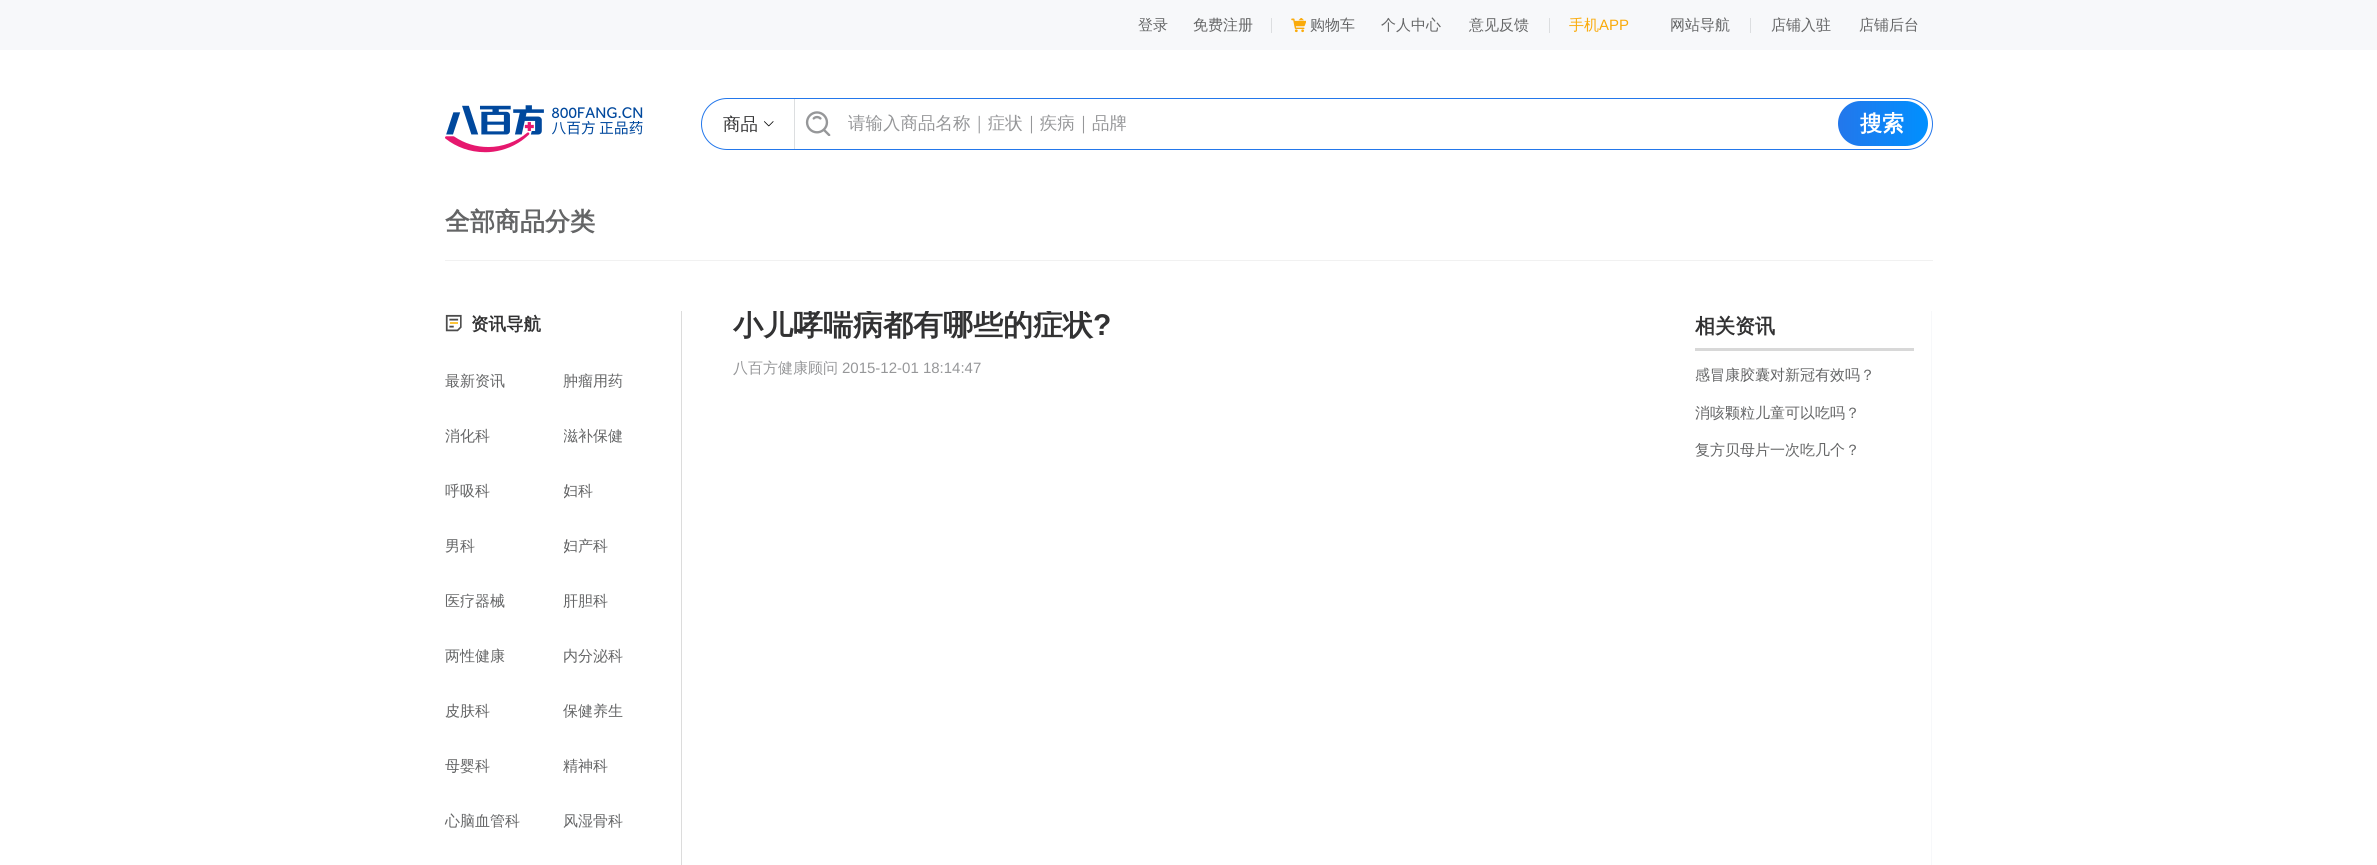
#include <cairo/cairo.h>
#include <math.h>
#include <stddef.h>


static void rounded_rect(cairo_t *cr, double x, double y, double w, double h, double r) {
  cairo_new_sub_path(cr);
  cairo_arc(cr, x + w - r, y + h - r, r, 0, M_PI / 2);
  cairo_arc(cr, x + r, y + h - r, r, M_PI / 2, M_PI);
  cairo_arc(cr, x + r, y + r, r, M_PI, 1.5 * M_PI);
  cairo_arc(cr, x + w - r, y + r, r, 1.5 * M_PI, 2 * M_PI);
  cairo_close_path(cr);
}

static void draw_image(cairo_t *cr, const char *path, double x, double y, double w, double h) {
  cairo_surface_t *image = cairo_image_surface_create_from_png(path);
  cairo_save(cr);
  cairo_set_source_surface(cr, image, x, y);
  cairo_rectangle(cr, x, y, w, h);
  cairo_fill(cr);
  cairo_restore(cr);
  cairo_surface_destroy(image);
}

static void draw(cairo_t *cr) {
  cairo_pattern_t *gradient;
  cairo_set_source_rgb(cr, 1, 1, 1);
  cairo_paint(cr);
  cairo_set_source_rgb(cr, 247 / 255.0, 248 / 255.0, 250 / 255.0);
  cairo_rectangle(cr, 0, 0, 2377, 50);
  cairo_fill(cr);
  cairo_set_source_rgb(cr, 220 / 255.0, 222 / 255.0, 224 / 255.0);
  cairo_rectangle(cr, 1271, 18, 1, 15);
  cairo_fill(cr);
  draw_image(cr, "images/1.png", 1291, 18, 15, 15);
  cairo_rectangle(cr, 1549, 18, 1, 15);
  cairo_fill(cr);
  cairo_rectangle(cr, 1750, 18, 1, 15);
  cairo_fill(cr);
  draw_image(cr, "images/2.png", 445, 105, 198, 48);
  rounded_rect(cr, 701.5, 98.5, 1231, 51, 25.5);
  cairo_set_source_rgb(cr, 35 / 255.0, 119 / 255.0, 235 / 255.0);
  cairo_set_line_width(cr, 1);
  cairo_stroke(cr);
  cairo_set_source_rgb(cr, 220 / 255.0, 222 / 255.0, 224 / 255.0);
  cairo_rectangle(cr, 794, 99, 1, 50);
  cairo_fill(cr);
  draw_image(cr, "images/3.png", 764, 121, 10, 6);
  draw_image(cr, "images/4.png", 805, 111, 26, 25);
  gradient = cairo_pattern_create_linear(1838, 124, 1928, 124);
  cairo_pattern_add_color_stop_rgba(gradient, 0, 35 / 255.0, 119 / 255.0, 235 / 255.0, 1);
  cairo_pattern_add_color_stop_rgba(gradient, 1, 0, 144 / 255.0, 1, 1);
  cairo_set_source(cr, gradient);
  cairo_pattern_destroy(gradient);
  rounded_rect(cr, 1838, 101, 90, 45, 22.5);
  cairo_fill(cr);
  cairo_set_source_rgb(cr, 241 / 255.0, 241 / 255.0, 241 / 255.0);
  cairo_rectangle(cr, 445, 260, 1488, 1);
  cairo_fill(cr);
  cairo_set_source_rgb(cr, 220 / 255.0, 220 / 255.0, 220 / 255.0);
  cairo_rectangle(cr, 681, 311, 1, 554);
  cairo_fill(cr);
  draw_image(cr, "images/5.png", 445, 314, 17, 18);
  cairo_set_source_rgb(cr, 247 / 255.0, 248 / 255.0, 250 / 255.0);
  cairo_rectangle(cr, 1931, 311, 1, 554);
  cairo_fill(cr);
  cairo_set_source_rgb(cr, 216 / 255.0, 216 / 255.0, 216 / 255.0);
  cairo_rectangle(cr, 1695, 348, 219, 3);
  cairo_fill(cr);
  cairo_select_font_face(cr, "WenQuanYi Zen Hei Medium", CAIRO_FONT_SLANT_NORMAL, CAIRO_FONT_WEIGHT_NORMAL);
  cairo_set_font_size(cr, 15);
  cairo_set_source_rgb(cr, 100 / 255.0, 101 / 255.0, 102 / 255.0);
  cairo_move_to(cr, 1138, 30);
  cairo_show_text(cr, "登录");
  cairo_move_to(cr, 1193, 30);
  cairo_show_text(cr, "免费注册");
  cairo_move_to(cr, 1310, 30);
  cairo_show_text(cr, "购物车");
  cairo_move_to(cr, 1381, 30);
  cairo_show_text(cr, "个人中心");
  cairo_move_to(cr, 1469, 30);
  cairo_show_text(cr, "意见反馈");
  cairo_set_source_rgb(cr, 250 / 255.0, 171 / 255.0, 12 / 255.0);
  cairo_move_to(cr, 1569, 30);
  cairo_show_text(cr, "手机");
  cairo_select_font_face(cr, "Liberation Sans", CAIRO_FONT_SLANT_NORMAL, CAIRO_FONT_WEIGHT_NORMAL);
  cairo_move_to(cr, 1599, 30);
  cairo_show_text(cr, "APP");
  cairo_select_font_face(cr, "WenQuanYi Zen Hei Medium", CAIRO_FONT_SLANT_NORMAL, CAIRO_FONT_WEIGHT_NORMAL);
  cairo_set_source_rgb(cr, 100 / 255.0, 101 / 255.0, 102 / 255.0);
  cairo_move_to(cr, 1670, 30);
  cairo_show_text(cr, "网站导航");
  cairo_move_to(cr, 1771, 30);
  cairo_show_text(cr, "店铺入驻");
  cairo_move_to(cr, 1859, 30);
  cairo_show_text(cr, "店铺后台");
  cairo_set_font_size(cr, 17.5);
  cairo_set_source_rgb(cr, 50 / 255.0, 50 / 255.0, 51 / 255.0);
  cairo_move_to(cr, 723, 130);
  cairo_show_text(cr, "商品");
  cairo_set_source_rgb(cr, 150 / 255.0, 151 / 255.0, 153 / 255.0);
  cairo_move_to(cr, 848, 129);
  cairo_show_text(cr, "请输入商品名称｜症状｜疾病｜品牌");
  cairo_select_font_face(cr, "WenQuanYi Zen Hei", CAIRO_FONT_SLANT_NORMAL, CAIRO_FONT_WEIGHT_BOLD);
  cairo_set_font_size(cr, 22);
  cairo_set_source_rgb(cr, 1, 1, 1);
  cairo_move_to(cr, 1860, 131);
  cairo_show_text(cr, "搜索");
  cairo_set_font_size(cr, 25);
  cairo_set_source_rgb(cr, 100 / 255.0, 101 / 255.0, 102 / 255.0);
  cairo_move_to(cr, 445, 230);
  cairo_show_text(cr, "全部商品分类");
  cairo_set_font_size(cr, 17.5);
  cairo_set_source_rgb(cr, 50 / 255.0, 50 / 255.0, 51 / 255.0);
  cairo_move_to(cr, 471, 330);
  cairo_show_text(cr, "资讯导航");
  cairo_select_font_face(cr, "WenQuanYi Zen Hei Medium", CAIRO_FONT_SLANT_NORMAL, CAIRO_FONT_WEIGHT_NORMAL);
  cairo_set_font_size(cr, 15);
  cairo_set_source_rgb(cr, 100 / 255.0, 101 / 255.0, 102 / 255.0);
  cairo_move_to(cr, 445, 386);
  cairo_show_text(cr, "最新资讯");
  cairo_move_to(cr, 563, 386);
  cairo_show_text(cr, "肿瘤用药");
  cairo_move_to(cr, 445, 441);
  cairo_show_text(cr, "消化科");
  cairo_save(cr);
  cairo_rectangle(cr, 564, 418, 100, 37);
  cairo_clip(cr);
  cairo_move_to(cr, 563, 441);
  cairo_show_text(cr, "滋补保健");
  cairo_restore(cr);
  cairo_move_to(cr, 445, 496);
  cairo_show_text(cr, "呼吸科");
  cairo_save(cr);
  cairo_rectangle(cr, 564, 473, 100, 37);
  cairo_clip(cr);
  cairo_move_to(cr, 563, 496);
  cairo_show_text(cr, "妇科");
  cairo_restore(cr);
  cairo_move_to(cr, 445, 551);
  cairo_show_text(cr, "男科");
  cairo_save(cr);
  cairo_rectangle(cr, 564, 528, 100, 37);
  cairo_clip(cr);
  cairo_move_to(cr, 563, 551);
  cairo_show_text(cr, "妇产科");
  cairo_restore(cr);
  cairo_move_to(cr, 445, 606);
  cairo_show_text(cr, "医疗器械");
  cairo_move_to(cr, 563, 606);
  cairo_show_text(cr, "肝胆科");
  cairo_move_to(cr, 445, 661);
  cairo_show_text(cr, "两性健康");
  cairo_move_to(cr, 563, 661);
  cairo_show_text(cr, "内分泌科");
  cairo_move_to(cr, 445, 716);
  cairo_show_text(cr, "皮肤科");
  cairo_move_to(cr, 563, 716);
  cairo_show_text(cr, "保健养生");
  cairo_move_to(cr, 445, 771);
  cairo_show_text(cr, "母婴科");
  cairo_move_to(cr, 563, 771);
  cairo_show_text(cr, "精神科");
  cairo_move_to(cr, 445, 826);
  cairo_show_text(cr, "心脑血管科");
  cairo_move_to(cr, 563, 826);
  cairo_show_text(cr, "风湿骨科");
  cairo_save(cr);
  cairo_rectangle(cr, 733, 311, 912, 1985);
  cairo_clip(cr);
  cairo_select_font_face(cr, "WenQuanYi Zen Hei", CAIRO_FONT_SLANT_NORMAL, CAIRO_FONT_WEIGHT_BOLD);
  cairo_set_font_size(cr, 30);
  cairo_set_source_rgb(cr, 50 / 255.0, 50 / 255.0, 51 / 255.0);
  cairo_move_to(cr, 733, 335);
  cairo_show_text(cr, "小儿哮喘病都有哪些的症状");
  cairo_restore(cr);
  cairo_select_font_face(cr, "Liberation Sans", CAIRO_FONT_SLANT_NORMAL, CAIRO_FONT_WEIGHT_BOLD);
  cairo_set_font_size(cr, 30);
  cairo_set_source_rgb(cr, 50 / 255.0, 50 / 255.0, 51 / 255.0);
  cairo_move_to(cr, 1093, 335);
  cairo_show_text(cr, "?");
  cairo_select_font_face(cr, "WenQuanYi Zen Hei Medium", CAIRO_FONT_SLANT_NORMAL, CAIRO_FONT_WEIGHT_NORMAL);
  cairo_set_font_size(cr, 15);
  cairo_set_source_rgb(cr, 150 / 255.0, 151 / 255.0, 153 / 255.0);
  cairo_move_to(cr, 733, 373);
  cairo_show_text(cr, "八百方健康顾问");
  cairo_select_font_face(cr, "Liberation Sans", CAIRO_FONT_SLANT_NORMAL, CAIRO_FONT_WEIGHT_NORMAL);
  cairo_move_to(cr, 842, 373);
  cairo_show_text(cr, "2015-12-01 18:14:47");
  cairo_select_font_face(cr, "WenQuanYi Zen Hei", CAIRO_FONT_SLANT_NORMAL, CAIRO_FONT_WEIGHT_BOLD);
  cairo_set_font_size(cr, 20);
  cairo_set_source_rgb(cr, 50 / 255.0, 50 / 255.0, 51 / 255.0);
  cairo_move_to(cr, 1695, 333);
  cairo_show_text(cr, "相关资讯");
  cairo_select_font_face(cr, "WenQuanYi Zen Hei Medium", CAIRO_FONT_SLANT_NORMAL, CAIRO_FONT_WEIGHT_NORMAL);
  cairo_set_font_size(cr, 15);
  cairo_set_source_rgb(cr, 100 / 255.0, 101 / 255.0, 102 / 255.0);
  cairo_move_to(cr, 1695, 380);
  cairo_show_text(cr, "感冒康胶囊对新冠有效吗？");
  cairo_move_to(cr, 1695, 418);
  cairo_show_text(cr, "消咳颗粒儿童可以吃吗？");
  cairo_move_to(cr, 1695, 455);
  cairo_show_text(cr, "复方贝母片一次吃几个？");
}

int main(void) {
  cairo_surface_t *surface = cairo_image_surface_create(CAIRO_FORMAT_RGB24, 2377, 865);
  cairo_t *cr = cairo_create(surface);
  cairo_font_options_t *options = cairo_font_options_create();
  cairo_font_options_set_hint_metrics(options, CAIRO_HINT_METRICS_OFF);
  cairo_font_options_set_hint_style(options, CAIRO_HINT_STYLE_NONE);
  cairo_set_font_options(cr, options);
  cairo_set_miter_limit(cr, 4);
  draw(cr);
  cairo_surface_write_to_png(surface, "out.png");
  cairo_font_options_destroy(options);
  cairo_destroy(cr);
  cairo_surface_destroy(surface);
  return 0;
}
